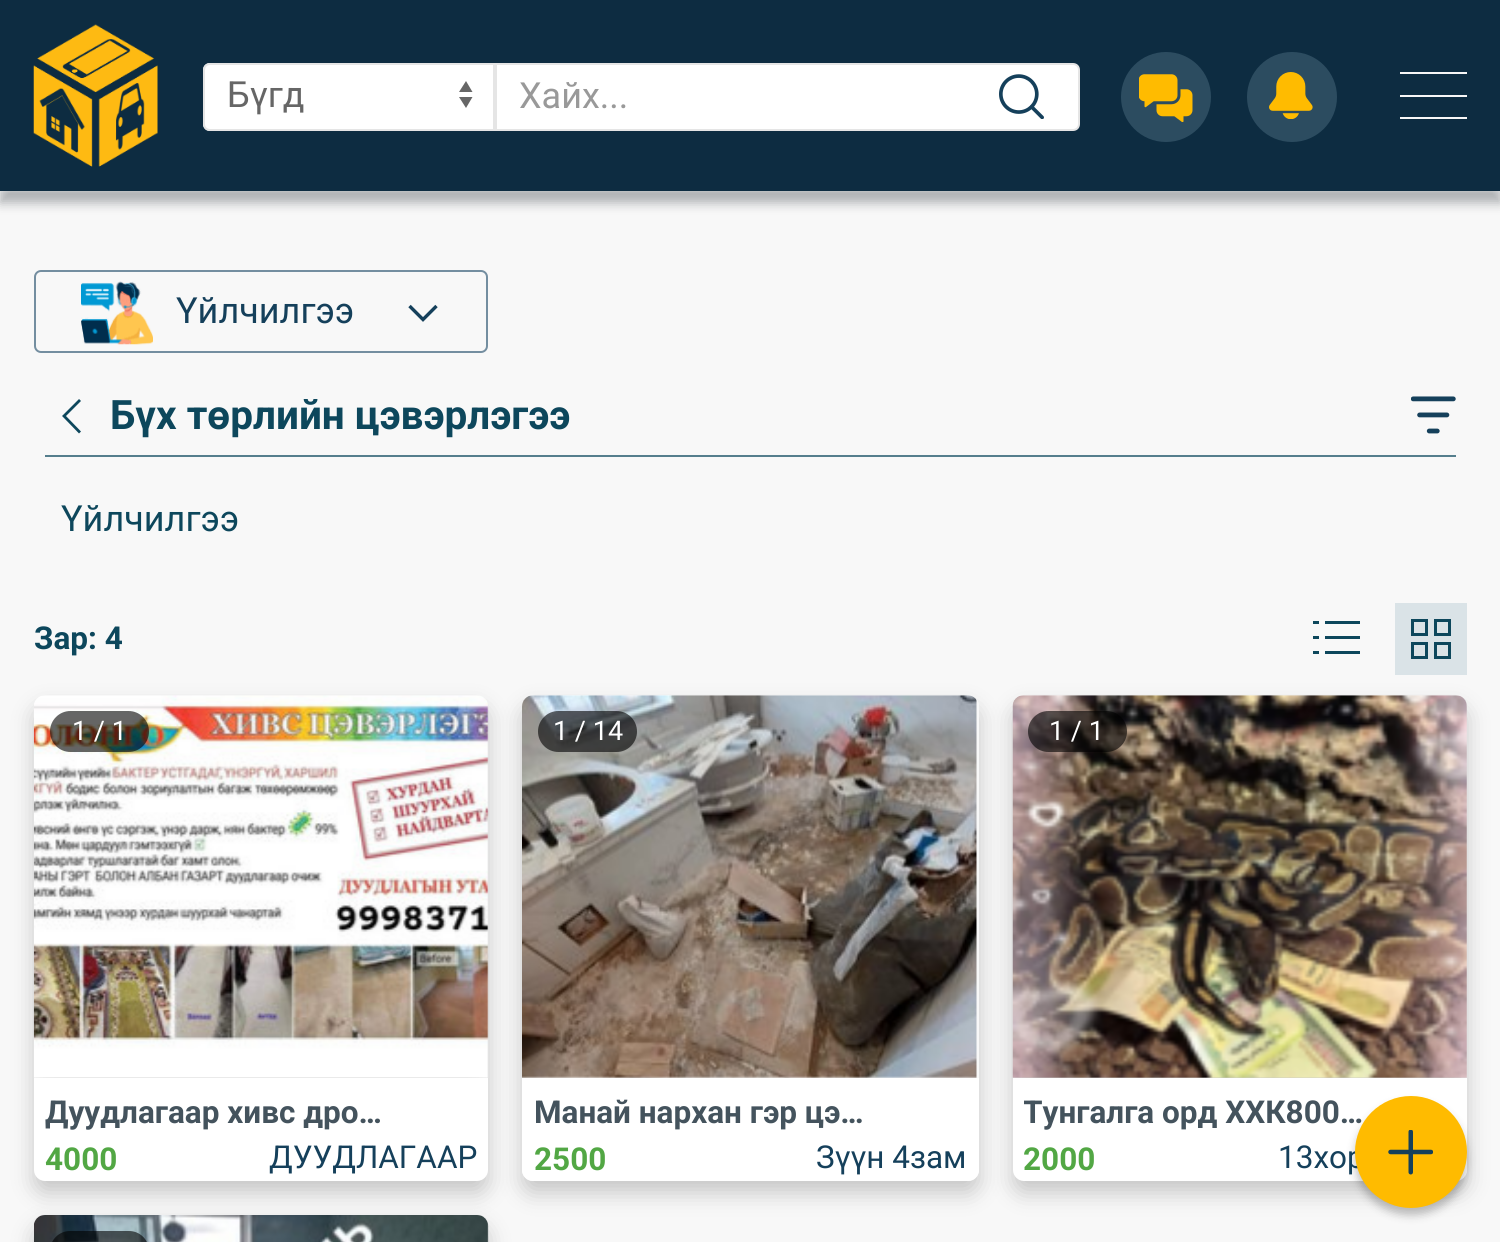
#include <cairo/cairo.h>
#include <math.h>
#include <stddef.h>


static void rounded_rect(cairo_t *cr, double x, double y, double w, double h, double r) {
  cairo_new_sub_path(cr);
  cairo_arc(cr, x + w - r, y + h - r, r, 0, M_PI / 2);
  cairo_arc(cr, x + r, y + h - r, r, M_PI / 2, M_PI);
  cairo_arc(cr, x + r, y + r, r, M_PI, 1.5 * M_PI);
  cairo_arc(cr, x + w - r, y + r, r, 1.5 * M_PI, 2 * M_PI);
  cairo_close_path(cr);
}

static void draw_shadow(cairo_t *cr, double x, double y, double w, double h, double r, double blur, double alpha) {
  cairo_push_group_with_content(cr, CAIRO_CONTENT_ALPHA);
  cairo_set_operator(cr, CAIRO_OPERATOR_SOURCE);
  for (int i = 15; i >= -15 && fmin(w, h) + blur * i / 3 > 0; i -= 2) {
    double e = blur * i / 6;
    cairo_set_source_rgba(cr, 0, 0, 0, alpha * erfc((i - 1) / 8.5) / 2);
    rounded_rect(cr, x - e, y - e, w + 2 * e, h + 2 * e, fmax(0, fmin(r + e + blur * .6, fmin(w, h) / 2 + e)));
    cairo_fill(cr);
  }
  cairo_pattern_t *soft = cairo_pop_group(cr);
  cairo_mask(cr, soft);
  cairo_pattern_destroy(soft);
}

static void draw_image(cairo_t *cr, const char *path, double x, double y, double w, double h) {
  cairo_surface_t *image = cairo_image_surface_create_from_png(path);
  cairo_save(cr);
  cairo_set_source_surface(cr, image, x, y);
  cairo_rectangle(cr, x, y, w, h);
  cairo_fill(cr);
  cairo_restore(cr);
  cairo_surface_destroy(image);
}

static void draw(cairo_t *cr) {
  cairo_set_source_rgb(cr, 248 / 255.0, 248 / 255.0, 248 / 255.0);
  cairo_paint(cr);
  cairo_set_source_rgb(cr, 0, 10 / 255.0, 18 / 255.0);
  draw_shadow(cr, 0, 11, 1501, 192, 0, 5.5, 0.3);
  cairo_set_source_rgb(cr, 245 / 255.0, 245 / 255.0, 245 / 255.0);
  draw_shadow(cr, 0, 0, 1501, 191, 0, 2, 0.5);
  cairo_set_source_rgb(cr, 13 / 255.0, 44 / 255.0, 65 / 255.0);
  cairo_rectangle(cr, 0, 0, 1500, 191);
  cairo_fill(cr);
  draw_image(cr, "images/1.png", 33, 24, 125, 143);
  cairo_set_source_rgb(cr, 1, 1, 1);
  cairo_new_path(cr);
  cairo_move_to(cr, 210, 63);
  cairo_line_to(cr, 495, 63);
  cairo_line_to(cr, 495, 131);
  cairo_line_to(cr, 210, 131);
  cairo_curve_to(cr, 206, 131, 203, 128, 203, 124);
  cairo_line_to(cr, 203, 70);
  cairo_curve_to(cr, 203, 66, 206, 63, 210, 63);
  cairo_close_path(cr);
  cairo_fill(cr);
  cairo_set_source_rgb(cr, 102 / 255.0, 102 / 255.0, 102 / 255.0);
  cairo_new_path(cr);
  cairo_move_to(cr, 466, 81);
  cairo_line_to(cr, 459, 92);
  cairo_line_to(cr, 472.5, 92);
  cairo_close_path(cr);
  cairo_move_to(cr, 466, 108);
  cairo_line_to(cr, 459, 97);
  cairo_line_to(cr, 472.5, 97);
  cairo_close_path(cr);
  cairo_fill(cr);
  cairo_new_path(cr);
  cairo_move_to(cr, 210, 64);
  cairo_line_to(cr, 494, 64);
  cairo_line_to(cr, 494, 130);
  cairo_line_to(cr, 210, 130);
  cairo_curve_to(cr, 206.5, 130, 204, 127.5, 204, 124);
  cairo_line_to(cr, 204, 70);
  cairo_curve_to(cr, 204, 66.5, 206.5, 64, 210, 64);
  cairo_close_path(cr);
  cairo_set_source_rgb(cr, 229 / 255.0, 229 / 255.0, 229 / 255.0);
  cairo_stroke(cr);
  cairo_set_source_rgb(cr, 1, 1, 1);
  cairo_new_path(cr);
  cairo_move_to(cr, 496, 64);
  cairo_line_to(cr, 1073, 64);
  cairo_curve_to(cr, 1076.5, 64, 1079, 66.5, 1079, 70);
  cairo_line_to(cr, 1079, 124);
  cairo_curve_to(cr, 1079, 127.5, 1076.5, 130, 1073, 130);
  cairo_line_to(cr, 496, 130);
  cairo_close_path(cr);
  cairo_fill_preserve(cr);
  cairo_set_source_rgb(cr, 229 / 255.0, 229 / 255.0, 229 / 255.0);
  cairo_stroke(cr);
  draw_image(cr, "images/2.png", 999, 74, 45, 45);
  cairo_set_source_rgb(cr, 44 / 255.0, 76 / 255.0, 96 / 255.0);
  cairo_arc(cr, 1166, 97, 45, 0, 2 * M_PI);
  cairo_fill(cr);
  draw_image(cr, "images/3.png", 1139, 74, 54, 48);
  cairo_arc(cr, 1292, 97, 45, 0, 2 * M_PI);
  cairo_fill(cr);
  draw_image(cr, "images/4.png", 1269, 72, 44, 47);
  cairo_set_source_rgb(cr, 247 / 255.0, 247 / 255.0, 247 / 255.0);
  cairo_rectangle(cr, 1400, 72, 67, 2);
  cairo_fill(cr);
  cairo_rectangle(cr, 1400, 95, 67, 2);
  cairo_fill(cr);
  cairo_rectangle(cr, 1400, 117, 67, 2);
  cairo_fill(cr);
  rounded_rect(cr, 35, 271, 452, 81, 6);
  cairo_set_source_rgb(cr, 116 / 255.0, 142 / 255.0, 160 / 255.0);
  cairo_stroke(cr);
  draw_image(cr, "images/5.png", 81, 281, 72, 64);
  cairo_new_path(cr);
  cairo_move_to(cr, 436.5, 306);
  cairo_line_to(cr, 423, 319.5);
  cairo_line_to(cr, 409.5, 306);
  cairo_set_source_rgb(cr, 21 / 255.0, 64 / 255.0, 91 / 255.0);
  cairo_set_line_width(cr, 3.4);
  cairo_stroke(cr);
  cairo_set_source_rgb(cr, 85 / 255.0, 126 / 255.0, 141 / 255.0);
  cairo_rectangle(cr, 45, 455, 1411, 2);
  cairo_fill(cr);
  cairo_new_path(cr);
  cairo_move_to(cr, 80, 432.5);
  cairo_line_to(cr, 64, 416);
  cairo_line_to(cr, 80, 400);
  cairo_set_source_rgb(cr, 13 / 255.0, 71 / 255.0, 92 / 255.0);
  cairo_set_line_width(cr, 2.8);
  cairo_stroke(cr);
  draw_image(cr, "images/6.png", 1411, 396, 45, 38);
  cairo_rectangle(cr, 1313, 621, 6, 3);
  cairo_fill(cr);
  cairo_rectangle(cr, 1325, 621, 35, 3);
  cairo_fill(cr);
  cairo_rectangle(cr, 1313, 636, 6, 3);
  cairo_fill(cr);
  cairo_rectangle(cr, 1325, 636, 35, 3);
  cairo_fill(cr);
  cairo_rectangle(cr, 1313, 651, 6, 3);
  cairo_fill(cr);
  cairo_rectangle(cr, 1325, 651, 35, 3);
  cairo_fill(cr);
  cairo_set_source_rgb(cr, 218 / 255.0, 227 / 255.0, 231 / 255.0);
  cairo_rectangle(cr, 1395, 603, 72, 72);
  cairo_fill(cr);
  cairo_rectangle(cr, 1412.5, 620.5, 14, 14);
  cairo_set_source_rgb(cr, 13 / 255.0, 71 / 255.0, 92 / 255.0);
  cairo_set_line_width(cr, 3);
  cairo_stroke(cr);
  cairo_rectangle(cr, 1435.5, 620.5, 14, 14);
  cairo_stroke(cr);
  cairo_rectangle(cr, 1412.5, 643.5, 14, 14);
  cairo_stroke(cr);
  cairo_rectangle(cr, 1435.5, 643.5, 14, 14);
  cairo_stroke(cr);
  cairo_set_source_rgb(cr, 0, 0, 0);
  draw_shadow(cr, 34, 707, 454, 486, 11, 11, 0.2);
  cairo_save(cr);
  cairo_set_fill_rule(cr, CAIRO_FILL_RULE_EVEN_ODD);
  cairo_new_path(cr);
  cairo_move_to(cr, 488, 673);
  cairo_line_to(cr, 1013, 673);
  cairo_line_to(cr, 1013, 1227);
  cairo_line_to(cr, 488, 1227);
  cairo_close_path(cr);
  cairo_move_to(cr, 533, 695);
  cairo_line_to(cr, 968, 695);
  cairo_curve_to(cr, 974, 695, 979, 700, 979, 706);
  cairo_line_to(cr, 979, 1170);
  cairo_curve_to(cr, 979, 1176, 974, 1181, 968, 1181);
  cairo_line_to(cr, 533, 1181);
  cairo_curve_to(cr, 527, 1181, 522, 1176, 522, 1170);
  cairo_line_to(cr, 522, 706);
  cairo_curve_to(cr, 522, 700, 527, 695, 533, 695);
  cairo_close_path(cr);
  cairo_clip(cr);
  draw_shadow(cr, 522, 707, 457, 486, 11, 11, 0.2);
  cairo_restore(cr);
  draw_image(cr, "images/7.png", 33, 695, 456, 383);
  cairo_set_source_rgba(cr, 0, 0, 0, 0.6);
  rounded_rect(cr, 50, 711, 99, 41, 20.5);
  cairo_fill(cr);
  cairo_set_source_rgb(cr, 1, 1, 1);
  cairo_new_path(cr);
  cairo_move_to(cr, 34, 1078);
  cairo_line_to(cr, 488, 1078);
  cairo_line_to(cr, 488, 1170);
  cairo_curve_to(cr, 488, 1176, 483, 1181, 477, 1181);
  cairo_line_to(cr, 45, 1181);
  cairo_curve_to(cr, 39, 1181, 34, 1176, 34, 1170);
  cairo_close_path(cr);
  cairo_fill(cr);
  draw_image(cr, "images/8.png", 522, 695, 455, 383);
  cairo_set_source_rgba(cr, 0, 0, 0, 0.6);
  rounded_rect(cr, 538, 711, 99, 41, 20.5);
  cairo_fill(cr);
  cairo_set_source_rgb(cr, 1, 1, 1);
  cairo_new_path(cr);
  cairo_move_to(cr, 522, 1078);
  cairo_line_to(cr, 979, 1078);
  cairo_line_to(cr, 979, 1170);
  cairo_curve_to(cr, 979, 1176, 974, 1181, 968, 1181);
  cairo_line_to(cr, 533, 1181);
  cairo_curve_to(cr, 527, 1181, 522, 1176, 522, 1170);
  cairo_close_path(cr);
  cairo_fill(cr);
  cairo_set_source_rgb(cr, 0, 0, 0);
  draw_shadow(cr, 1013, 707, 454, 486, 11, 11, 0.2);
  draw_image(cr, "images/9.png", 1012, 695, 455, 383);
  cairo_set_source_rgba(cr, 0, 0, 0, 0.6);
  rounded_rect(cr, 1028, 711, 99, 41, 20.5);
  cairo_fill(cr);
  cairo_set_source_rgb(cr, 1, 1, 1);
  cairo_new_path(cr);
  cairo_move_to(cr, 1013, 1078);
  cairo_line_to(cr, 1467, 1078);
  cairo_line_to(cr, 1467, 1170);
  cairo_curve_to(cr, 1467, 1176, 1462, 1181, 1456, 1181);
  cairo_line_to(cr, 1024, 1181);
  cairo_curve_to(cr, 1018, 1181, 1013, 1176, 1013, 1170);
  cairo_close_path(cr);
  cairo_fill(cr);
  cairo_set_source_rgb(cr, 0, 0, 0);
  draw_shadow(cr, 34, 1226, 454, 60, 11, 11, 0.2);
  draw_image(cr, "images/10.png", 34, 1215, 455, 27);
  cairo_set_source_rgba(cr, 0, 0, 0, 0.6);
  rounded_rect(cr, 50, 1231, 99, 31, 20);
  cairo_fill(cr);
  cairo_set_source_rgb(cr, 0, 0, 0);
  draw_shadow(cr, 1355, 1103, 112, 112, 56, 4.5, 0.25);
  cairo_select_font_face(cr, "Roboto", CAIRO_FONT_SLANT_NORMAL, CAIRO_FONT_WEIGHT_NORMAL);
  cairo_set_font_size(cr, 36);
  cairo_set_source_rgb(cr, 102 / 255.0, 102 / 255.0, 102 / 255.0);
  cairo_move_to(cr, 227, 107);
  cairo_show_text(cr, "Бүгд");
  cairo_set_source_rgb(cr, 153 / 255.0, 153 / 255.0, 153 / 255.0);
  cairo_move_to(cr, 519, 108);
  cairo_show_text(cr, "Хайх...");
  cairo_set_source_rgb(cr, 21 / 255.0, 64 / 255.0, 91 / 255.0);
  cairo_move_to(cr, 176, 323);
  cairo_show_text(cr, "Үйлчилгээ");
  cairo_select_font_face(cr, "Roboto", CAIRO_FONT_SLANT_NORMAL, CAIRO_FONT_WEIGHT_BOLD);
  cairo_set_font_size(cr, 40.5);
  cairo_set_source_rgb(cr, 13 / 255.0, 71 / 255.0, 92 / 255.0);
  cairo_move_to(cr, 110, 429);
  cairo_show_text(cr, "Бүх төрлийн цэвэрлэгээ");
  cairo_select_font_face(cr, "Roboto", CAIRO_FONT_SLANT_NORMAL, CAIRO_FONT_WEIGHT_NORMAL);
  cairo_set_font_size(cr, 36);
  cairo_move_to(cr, 61, 531);
  cairo_show_text(cr, "Үйлчилгээ");
  cairo_select_font_face(cr, "Roboto", CAIRO_FONT_SLANT_NORMAL, CAIRO_FONT_WEIGHT_BOLD);
  cairo_set_font_size(cr, 31.5);
  cairo_move_to(cr, 34, 649);
  cairo_show_text(cr, "Зар: 4");
  cairo_select_font_face(cr, "Roboto", CAIRO_FONT_SLANT_NORMAL, CAIRO_FONT_WEIGHT_NORMAL);
  cairo_set_font_size(cr, 27);
  cairo_set_source_rgb(cr, 1, 1, 1);
  cairo_move_to(cr, 72, 740);
  cairo_show_text(cr, "1 / 1");
  cairo_select_font_face(cr, "Roboto", CAIRO_FONT_SLANT_NORMAL, CAIRO_FONT_WEIGHT_BOLD);
  cairo_set_font_size(cr, 31.5);
  cairo_set_source_rgb(cr, 68 / 255.0, 83 / 255.0, 93 / 255.0);
  cairo_move_to(cr, 45, 1123);
  cairo_show_text(cr, "Дуудлагаар хивс дро…");
  cairo_set_source_rgb(cr, 82 / 255.0, 167 / 255.0, 68 / 255.0);
  cairo_move_to(cr, 45, 1170);
  cairo_show_text(cr, "4000");
  cairo_select_font_face(cr, "Roboto", CAIRO_FONT_SLANT_NORMAL, CAIRO_FONT_WEIGHT_NORMAL);
  cairo_set_source_rgb(cr, 21 / 255.0, 64 / 255.0, 91 / 255.0);
  cairo_move_to(cr, 269, 1168);
  cairo_show_text(cr, "ДУУДЛАГААР");
  cairo_set_font_size(cr, 27);
  cairo_set_source_rgb(cr, 1, 1, 1);
  cairo_move_to(cr, 553, 740);
  cairo_show_text(cr, "1 / 14");
  cairo_select_font_face(cr, "Roboto", CAIRO_FONT_SLANT_NORMAL, CAIRO_FONT_WEIGHT_BOLD);
  cairo_set_font_size(cr, 31.5);
  cairo_set_source_rgb(cr, 68 / 255.0, 83 / 255.0, 93 / 255.0);
  cairo_move_to(cr, 534, 1123);
  cairo_show_text(cr, "Манай нархан гэр цэ…");
  cairo_set_source_rgb(cr, 82 / 255.0, 167 / 255.0, 68 / 255.0);
  cairo_move_to(cr, 534, 1170);
  cairo_show_text(cr, "2500");
  cairo_select_font_face(cr, "Roboto", CAIRO_FONT_SLANT_NORMAL, CAIRO_FONT_WEIGHT_NORMAL);
  cairo_set_source_rgb(cr, 21 / 255.0, 64 / 255.0, 91 / 255.0);
  cairo_move_to(cr, 816, 1168);
  cairo_show_text(cr, "Зүүн 4зам");
  cairo_set_font_size(cr, 27);
  cairo_set_source_rgb(cr, 1, 1, 1);
  cairo_move_to(cr, 1049, 740);
  cairo_show_text(cr, "1 / 1");
  cairo_save(cr);
  cairo_rectangle(cr, 1024, 1089, 344, 47);
  cairo_clip(cr);
  cairo_select_font_face(cr, "Roboto", CAIRO_FONT_SLANT_NORMAL, CAIRO_FONT_WEIGHT_BOLD);
  cairo_set_font_size(cr, 31.5);
  cairo_set_source_rgb(cr, 68 / 255.0, 83 / 255.0, 93 / 255.0);
  cairo_move_to(cr, 1023, 1123);
  cairo_show_text(cr, "Тунгалга орд ХХК800…");
  cairo_restore(cr);
  cairo_select_font_face(cr, "Roboto", CAIRO_FONT_SLANT_NORMAL, CAIRO_FONT_WEIGHT_BOLD);
  cairo_set_font_size(cr, 31.5);
  cairo_set_source_rgb(cr, 82 / 255.0, 167 / 255.0, 68 / 255.0);
  cairo_move_to(cr, 1023, 1170);
  cairo_show_text(cr, "2000");
  cairo_select_font_face(cr, "Roboto", CAIRO_FONT_SLANT_NORMAL, CAIRO_FONT_WEIGHT_NORMAL);
  cairo_set_source_rgb(cr, 21 / 255.0, 64 / 255.0, 91 / 255.0);
  cairo_move_to(cr, 1278, 1168);
  cairo_show_text(cr, "13хор");
  cairo_set_source_rgb(cr, 1, 187 / 255.0, 0);
  cairo_new_path(cr);
  cairo_arc(cr, 1411, 1152, 56, 0, 2 * M_PI);
  cairo_fill(cr);
  draw_image(cr, "images/11.png", 1388, 1130, 45, 45);
}

int main(void) {
  cairo_surface_t *surface = cairo_image_surface_create(CAIRO_FORMAT_RGB24, 1500, 1242);
  cairo_t *cr = cairo_create(surface);
  cairo_font_options_t *options = cairo_font_options_create();
  cairo_font_options_set_hint_metrics(options, CAIRO_HINT_METRICS_OFF);
  cairo_font_options_set_hint_style(options, CAIRO_HINT_STYLE_NONE);
  cairo_set_font_options(cr, options);
  cairo_set_miter_limit(cr, 4);
  draw(cr);
  cairo_surface_write_to_png(surface, "out.png");
  cairo_font_options_destroy(options);
  cairo_destroy(cr);
  cairo_surface_destroy(surface);
  return 0;
}
